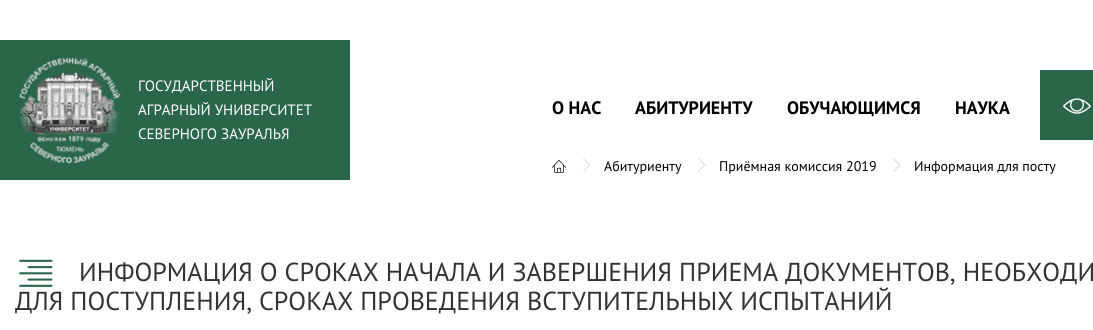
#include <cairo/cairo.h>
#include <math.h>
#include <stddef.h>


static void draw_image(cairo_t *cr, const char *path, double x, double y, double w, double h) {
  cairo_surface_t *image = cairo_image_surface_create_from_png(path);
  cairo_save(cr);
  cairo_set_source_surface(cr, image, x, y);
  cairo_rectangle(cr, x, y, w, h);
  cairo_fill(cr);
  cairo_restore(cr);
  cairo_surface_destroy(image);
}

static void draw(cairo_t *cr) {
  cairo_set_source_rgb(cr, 1, 1, 1);
  cairo_paint(cr);
  cairo_set_source_rgb(cr, 42 / 255.0, 102 / 255.0, 74 / 255.0);
  cairo_rectangle(cr, 0, 40, 350, 140);
  cairo_fill(cr);
  draw_image(cr, "images/1.png", 19, 58, 102, 105);
  cairo_rectangle(cr, 1040, 70, 53, 70);
  cairo_fill(cr);
  draw_image(cr, "images/2.png", 1063, 98, 28, 16);
  draw_image(cr, "images/3.png", 552, 160, 14, 13);
  draw_image(cr, "images/4.png", 583, 158, 7, 14);
  draw_image(cr, "images/4.png", 698, 158, 7, 14);
  draw_image(cr, "images/4.png", 893, 158, 7, 14);
  draw_image(cr, "images/5.png", 19, 259, 34, 28);
  cairo_select_font_face(cr, "PT Sans", CAIRO_FONT_SLANT_NORMAL, CAIRO_FONT_WEIGHT_NORMAL);
  cairo_set_font_size(cr, 15);
  cairo_set_source_rgb(cr, 1, 1, 1);
  cairo_move_to(cr, 138, 91);
  cairo_show_text(cr, "ГОСУДАРСТВЕННЫЙ");
  cairo_move_to(cr, 138, 115);
  cairo_show_text(cr, "АГРАРНЫЙ УНИВЕРСИТЕТ");
  cairo_move_to(cr, 138, 139);
  cairo_show_text(cr, "СЕВЕРНОГО ЗАУРАЛЬЯ");
  cairo_select_font_face(cr, "PT Sans", CAIRO_FONT_SLANT_NORMAL, CAIRO_FONT_WEIGHT_BOLD);
  cairo_set_font_size(cr, 18);
  cairo_set_source_rgb(cr, 0, 0, 0);
  cairo_move_to(cr, 552, 114);
  cairo_show_text(cr, "О НАС");
  cairo_move_to(cr, 635, 114);
  cairo_show_text(cr, "АБИТУРИЕНТУ");
  cairo_move_to(cr, 787, 114);
  cairo_show_text(cr, "ОБУЧАЮЩИМСЯ");
  cairo_move_to(cr, 955, 114);
  cairo_show_text(cr, "НАУКА");
  cairo_select_font_face(cr, "PT Sans", CAIRO_FONT_SLANT_NORMAL, CAIRO_FONT_WEIGHT_NORMAL);
  cairo_set_font_size(cr, 14);
  cairo_move_to(cr, 604, 171);
  cairo_show_text(cr, "Абитуриенту");
  cairo_move_to(cr, 719, 171);
  cairo_show_text(cr, "Приёмная комиссия 2019");
  cairo_move_to(cr, 914, 171);
  cairo_show_text(cr, "Информация для посту");
  cairo_set_font_size(cr, 26);
  cairo_set_source_rgb(cr, 51 / 255.0, 51 / 255.0, 51 / 255.0);
  cairo_move_to(cr, 79, 281);
  cairo_show_text(cr, "ИНФОРМАЦИЯ О СРОКАХ НАЧАЛА И ЗАВЕРШЕНИЯ ПРИЕМА ДОКУМЕНТОВ, НЕОБХОДИ");
  cairo_move_to(cr, 15, 310);
  cairo_show_text(cr, "ДЛЯ ПОСТУПЛЕНИЯ, СРОКАХ ПРОВЕДЕНИЯ ВСТУПИТЕЛЬНЫХ ИСПЫТАНИЙ");
}

int main(void) {
  cairo_surface_t *surface = cairo_image_surface_create(CAIRO_FORMAT_RGB24, 1093, 330);
  cairo_t *cr = cairo_create(surface);
  cairo_font_options_t *options = cairo_font_options_create();
  cairo_font_options_set_hint_metrics(options, CAIRO_HINT_METRICS_OFF);
  cairo_font_options_set_hint_style(options, CAIRO_HINT_STYLE_NONE);
  cairo_set_font_options(cr, options);
  cairo_set_miter_limit(cr, 4);
  draw(cr);
  cairo_surface_write_to_png(surface, "out.png");
  cairo_font_options_destroy(options);
  cairo_destroy(cr);
  cairo_surface_destroy(surface);
  return 0;
}
